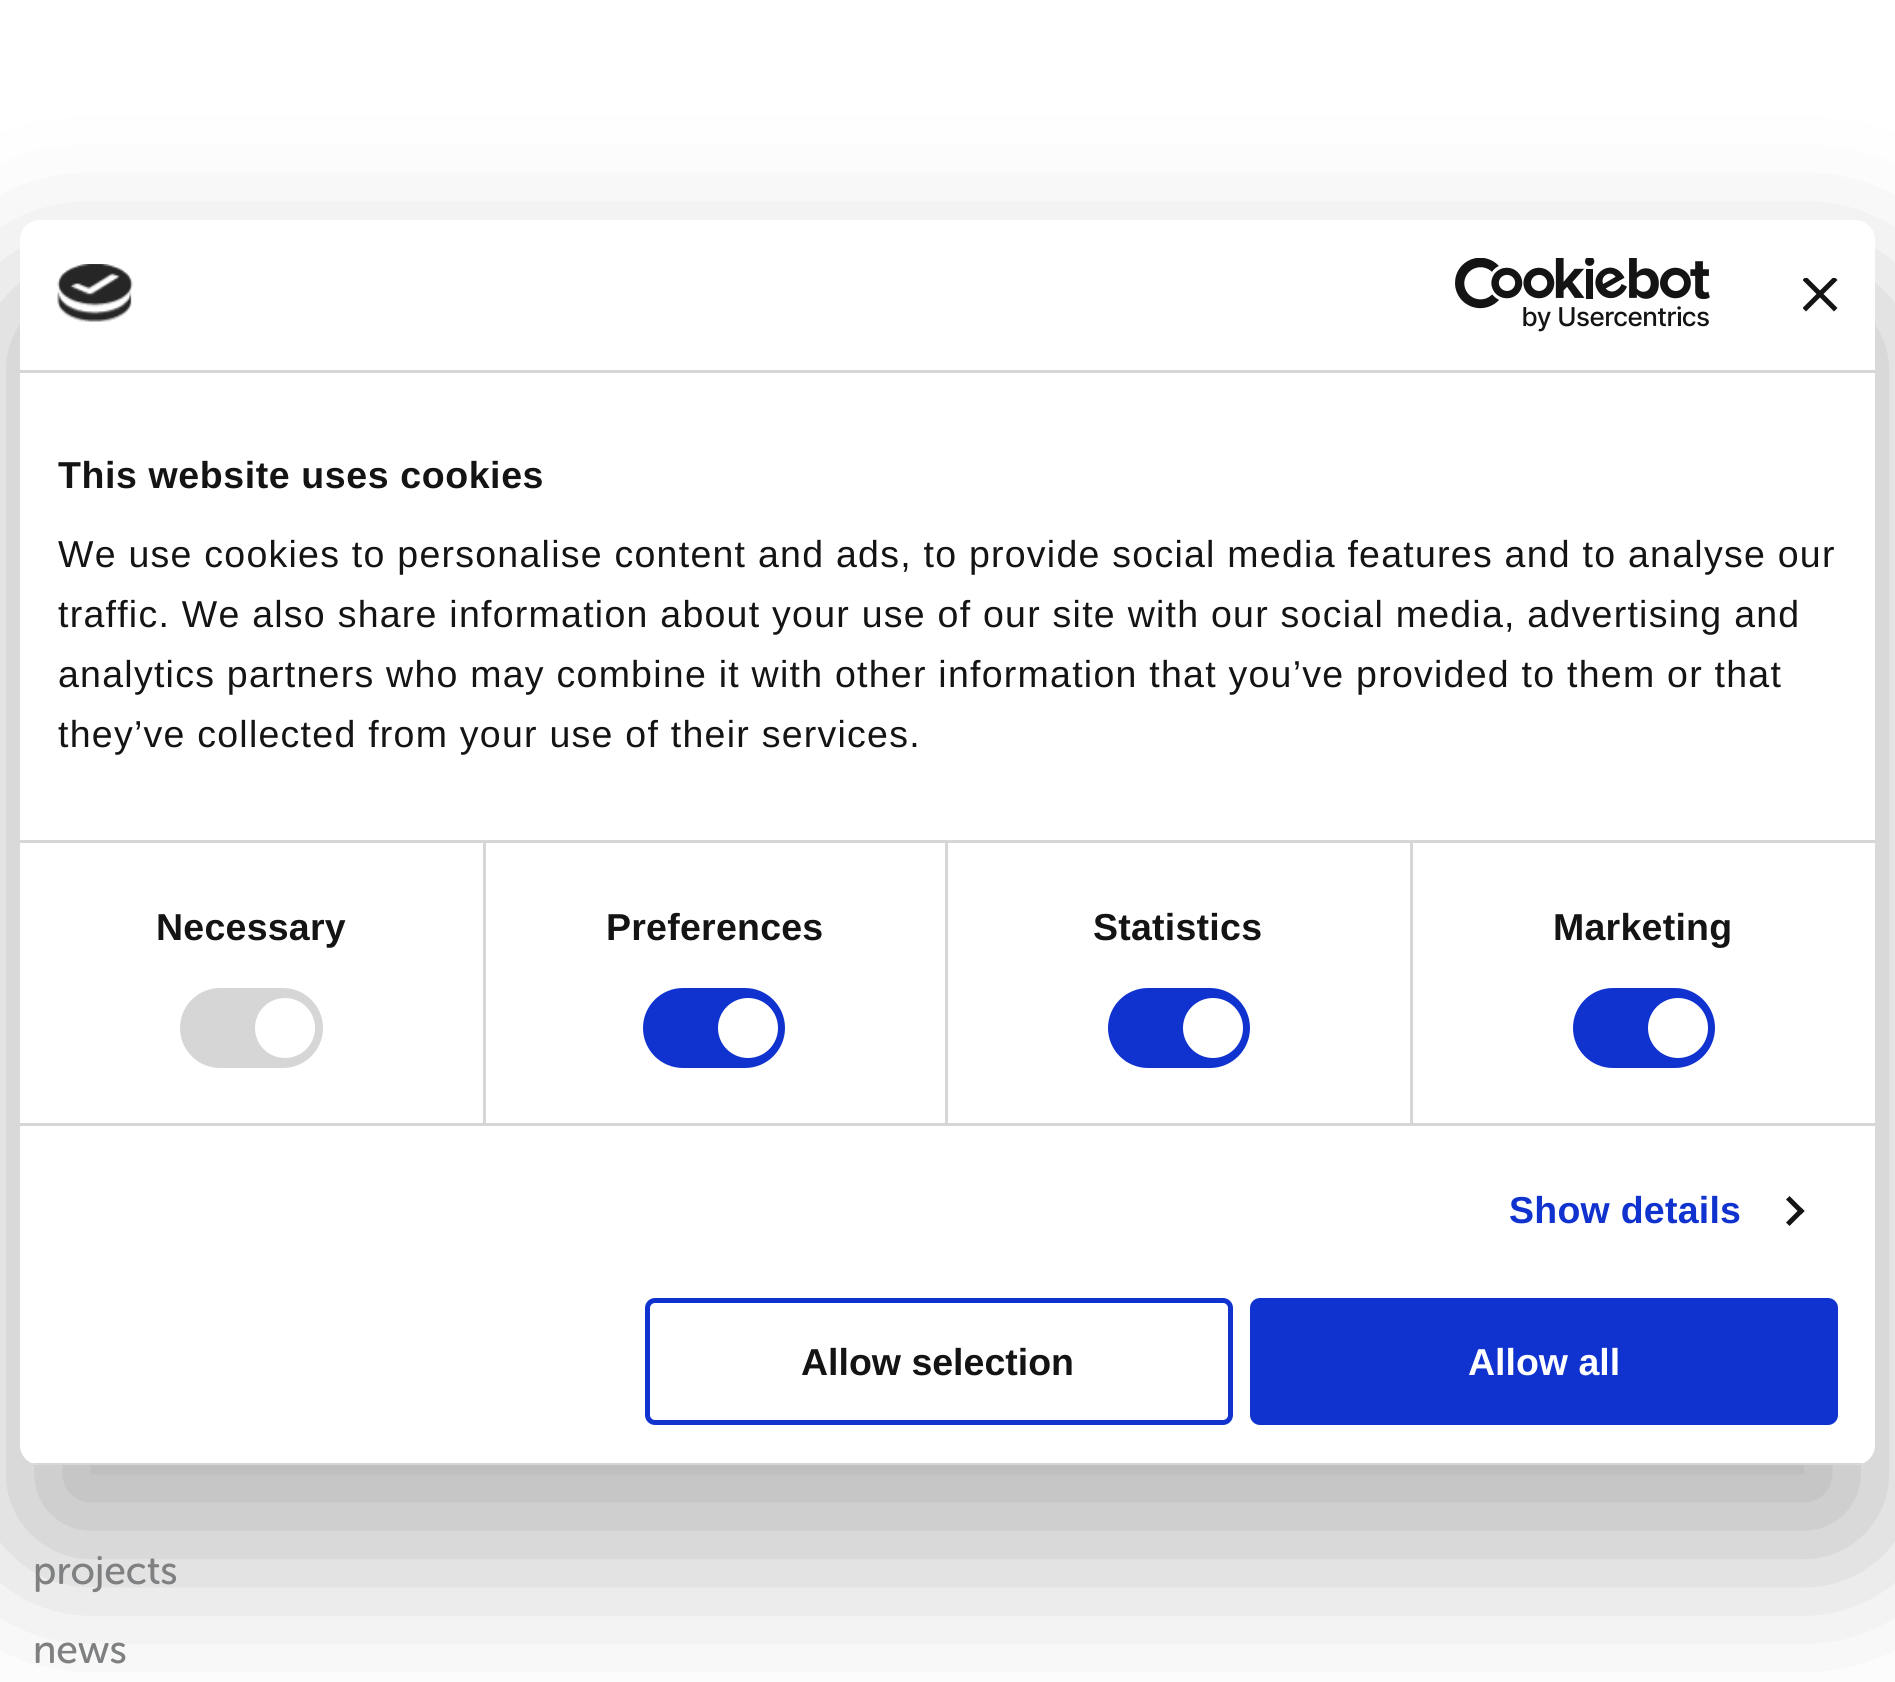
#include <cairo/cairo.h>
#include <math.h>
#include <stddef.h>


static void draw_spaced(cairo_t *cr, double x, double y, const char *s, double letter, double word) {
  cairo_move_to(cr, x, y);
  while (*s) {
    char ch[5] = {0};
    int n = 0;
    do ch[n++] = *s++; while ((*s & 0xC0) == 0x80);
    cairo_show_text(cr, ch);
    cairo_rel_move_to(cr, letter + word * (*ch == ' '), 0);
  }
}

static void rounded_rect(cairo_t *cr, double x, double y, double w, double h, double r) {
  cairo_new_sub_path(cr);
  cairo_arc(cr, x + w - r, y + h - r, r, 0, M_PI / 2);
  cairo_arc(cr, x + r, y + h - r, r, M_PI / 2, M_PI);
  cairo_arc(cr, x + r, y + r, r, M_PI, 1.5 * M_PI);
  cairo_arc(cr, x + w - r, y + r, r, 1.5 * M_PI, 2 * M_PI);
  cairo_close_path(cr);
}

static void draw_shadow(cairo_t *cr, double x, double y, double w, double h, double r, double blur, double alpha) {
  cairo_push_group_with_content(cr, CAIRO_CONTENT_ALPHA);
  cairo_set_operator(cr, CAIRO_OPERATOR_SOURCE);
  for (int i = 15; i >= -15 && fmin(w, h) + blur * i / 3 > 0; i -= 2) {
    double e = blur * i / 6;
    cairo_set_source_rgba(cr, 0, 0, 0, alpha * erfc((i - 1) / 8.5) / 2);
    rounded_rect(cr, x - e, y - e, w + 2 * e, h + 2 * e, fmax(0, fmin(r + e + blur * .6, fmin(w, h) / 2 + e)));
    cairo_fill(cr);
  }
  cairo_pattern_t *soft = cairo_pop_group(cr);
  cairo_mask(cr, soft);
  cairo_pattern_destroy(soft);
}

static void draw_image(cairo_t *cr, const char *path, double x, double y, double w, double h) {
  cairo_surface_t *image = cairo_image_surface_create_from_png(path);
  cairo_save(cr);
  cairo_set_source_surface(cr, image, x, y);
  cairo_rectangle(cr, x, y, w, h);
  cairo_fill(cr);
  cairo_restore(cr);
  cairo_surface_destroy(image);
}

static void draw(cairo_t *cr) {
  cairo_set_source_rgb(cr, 1, 1, 1);
  cairo_paint(cr);
  cairo_set_source_rgb(cr, 0, 0, 0);
  draw_shadow(cr, 20, 300, 1855, 1245, 20, 85, 0.3);
  cairo_set_source_rgb(cr, 1, 1, 1);
  rounded_rect(cr, 20, 220, 1855, 1245, 20);
  cairo_fill(cr);
  cairo_set_source_rgb(cr, 214 / 255.0, 214 / 255.0, 214 / 255.0);
  cairo_rectangle(cr, 20, 370, 1855, 3);
  cairo_fill(cr);
  draw_image(cr, "images/1.png", 57, 264, 76, 58);
  draw_image(cr, "images/2.png", 1455, 258, 255, 74);
  cairo_save(cr);
  cairo_rectangle(cr, 1803, 278, 35, 35);
  cairo_clip(cr);
  cairo_set_source_rgb(cr, 20 / 255.0, 20 / 255.0, 20 / 255.0);
  cairo_new_path(cr);
  cairo_move_to(cr, 1837.5, 280);
  cairo_line_to(cr, 1834, 276.5);
  cairo_line_to(cr, 1820, 290.5);
  cairo_line_to(cr, 1806, 276.5);
  cairo_line_to(cr, 1802.5, 280);
  cairo_line_to(cr, 1816.5, 294);
  cairo_line_to(cr, 1802.5, 308);
  cairo_line_to(cr, 1806, 311.5);
  cairo_line_to(cr, 1820, 297.5);
  cairo_line_to(cr, 1834, 311.5);
  cairo_line_to(cr, 1837.5, 308);
  cairo_line_to(cr, 1823.5, 294);
  cairo_close_path(cr);
  cairo_fill(cr);
  cairo_restore(cr);
  cairo_rectangle(cr, 20, 840, 1855, 3);
  cairo_fill(cr);
  cairo_rectangle(cr, 20, 1123, 1855, 3);
  cairo_fill(cr);
  cairo_rectangle(cr, 483, 843, 3, 280);
  cairo_fill(cr);
  rounded_rect(cr, 180, 988, 143, 80, 40);
  cairo_fill(cr);
  cairo_set_source_rgb(cr, 1, 1, 1);
  cairo_arc(cr, 285, 1028, 30, 0, 2 * M_PI);
  cairo_fill(cr);
  cairo_set_source_rgb(cr, 214 / 255.0, 214 / 255.0, 214 / 255.0);
  cairo_rectangle(cr, 945, 843, 3, 280);
  cairo_fill(cr);
  cairo_set_source_rgb(cr, 16 / 255.0, 50 / 255.0, 207 / 255.0);
  rounded_rect(cr, 643, 988, 142, 80, 40);
  cairo_fill(cr);
  cairo_set_source_rgb(cr, 1, 1, 1);
  cairo_arc(cr, 748, 1028, 30, 0, 2 * M_PI);
  cairo_fill(cr);
  cairo_set_source_rgb(cr, 214 / 255.0, 214 / 255.0, 214 / 255.0);
  cairo_rectangle(cr, 1410, 843, 3, 280);
  cairo_fill(cr);
  cairo_set_source_rgb(cr, 16 / 255.0, 50 / 255.0, 207 / 255.0);
  rounded_rect(cr, 1108, 988, 142, 80, 40);
  cairo_fill(cr);
  cairo_set_source_rgb(cr, 1, 1, 1);
  cairo_arc(cr, 1213, 1028, 30, 0, 2 * M_PI);
  cairo_fill(cr);
  cairo_set_source_rgb(cr, 16 / 255.0, 50 / 255.0, 207 / 255.0);
  rounded_rect(cr, 1573, 988, 142, 80, 40);
  cairo_fill(cr);
  cairo_set_source_rgb(cr, 1, 1, 1);
  cairo_arc(cr, 1678, 1028, 30, 0, 2 * M_PI);
  cairo_fill(cr);
  cairo_set_source_rgb(cr, 20 / 255.0, 20 / 255.0, 20 / 255.0);
  cairo_new_path(cr);
  cairo_move_to(cr, 1789.5, 1196);
  cairo_line_to(cr, 1804.5, 1211);
  cairo_line_to(cr, 1801, 1214.5);
  cairo_line_to(cr, 1786, 1199.5);
  cairo_close_path(cr);
  cairo_fill(cr);
  cairo_new_path(cr);
  cairo_move_to(cr, 1801, 1207.5);
  cairo_line_to(cr, 1804.5, 1211);
  cairo_line_to(cr, 1789.5, 1226);
  cairo_line_to(cr, 1786, 1222.5);
  cairo_close_path(cr);
  cairo_fill(cr);
  cairo_save(cr);
  rounded_rect(cr, 20, 220, 1855, 1245, 20);
  cairo_clip(cr);
  cairo_set_source_rgb(cr, 214 / 255.0, 214 / 255.0, 214 / 255.0);
  cairo_rectangle(cr, 31, 1463, 1833, 2);
  cairo_fill(cr);
  cairo_restore(cr);
  rounded_rect(cr, 647.5, 1300.5, 583, 122, 7.5);
  cairo_set_source_rgb(cr, 16 / 255.0, 50 / 255.0, 207 / 255.0);
  cairo_set_line_width(cr, 5);
  cairo_stroke(cr);
  rounded_rect(cr, 1252.5, 1300.5, 583, 122, 7.5);
  cairo_fill_preserve(cr);
  cairo_stroke(cr);
  cairo_select_font_face(cr, "Liberation Sans", CAIRO_FONT_SLANT_NORMAL, CAIRO_FONT_WEIGHT_BOLD);
  cairo_set_font_size(cr, 37.5);
  cairo_set_source_rgb(cr, 20 / 255.0, 20 / 255.0, 20 / 255.0);
  draw_spaced(cr, 58, 488, "This website uses cookies", 0.6, 0);
  cairo_select_font_face(cr, "Liberation Sans", CAIRO_FONT_SLANT_NORMAL, CAIRO_FONT_WEIGHT_NORMAL);
  draw_spaced(cr, 58, 567, "We use cookies to personalise content and ads, to provide social media features and to analyse our", 1.25, 0);
  draw_spaced(cr, 58, 627, "traffic. We also share information about your use of our site with our social media, advertising and", 1.25, 0);
  draw_spaced(cr, 58, 687, "analytics partners who may combine it with other information that you’ve provided to them or that", 1.25, 0);
  draw_spaced(cr, 58, 747, "they’ve collected from your use of their services.", 1.25, 0);
  cairo_select_font_face(cr, "Liberation Sans", CAIRO_FONT_SLANT_NORMAL, CAIRO_FONT_WEIGHT_BOLD);
  draw_spaced(cr, 156, 940, "Necessary", 0.25, 0);
  draw_spaced(cr, 606, 940, "Preferences", 0.25, 0);
  draw_spaced(cr, 1093, 940, "Statistics", 0.25, 0);
  draw_spaced(cr, 1553, 940, "Marketing", 0.25, 0);
  cairo_set_source_rgb(cr, 16 / 255.0, 50 / 255.0, 207 / 255.0);
  draw_spaced(cr, 1509, 1223, "Show details", 0.25, 0);
  cairo_set_source_rgb(cr, 20 / 255.0, 20 / 255.0, 20 / 255.0);
  cairo_move_to(cr, 801, 1375);
  cairo_show_text(cr, "Allow selection");
  cairo_set_source_rgb(cr, 1, 1, 1);
  cairo_move_to(cr, 1468, 1375);
  cairo_show_text(cr, "Allow all");
  cairo_select_font_face(cr, "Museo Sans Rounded", CAIRO_FONT_SLANT_NORMAL, CAIRO_FONT_WEIGHT_NORMAL);
  cairo_set_font_size(cr, 39.5);
  cairo_set_source_rgb(cr, 126 / 255.0, 128 / 255.0, 130 / 255.0);
  cairo_move_to(cr, 33, 1584);
  cairo_show_text(cr, "projects");
  cairo_move_to(cr, 33, 1663);
  cairo_show_text(cr, "news");
}

int main(void) {
  cairo_surface_t *surface = cairo_image_surface_create(CAIRO_FORMAT_RGB24, 1895, 1682);
  cairo_t *cr = cairo_create(surface);
  cairo_font_options_t *options = cairo_font_options_create();
  cairo_font_options_set_hint_metrics(options, CAIRO_HINT_METRICS_OFF);
  cairo_font_options_set_hint_style(options, CAIRO_HINT_STYLE_NONE);
  cairo_set_font_options(cr, options);
  cairo_set_miter_limit(cr, 4);
  draw(cr);
  cairo_surface_write_to_png(surface, "out.png");
  cairo_font_options_destroy(options);
  cairo_destroy(cr);
  cairo_surface_destroy(surface);
  return 0;
}
